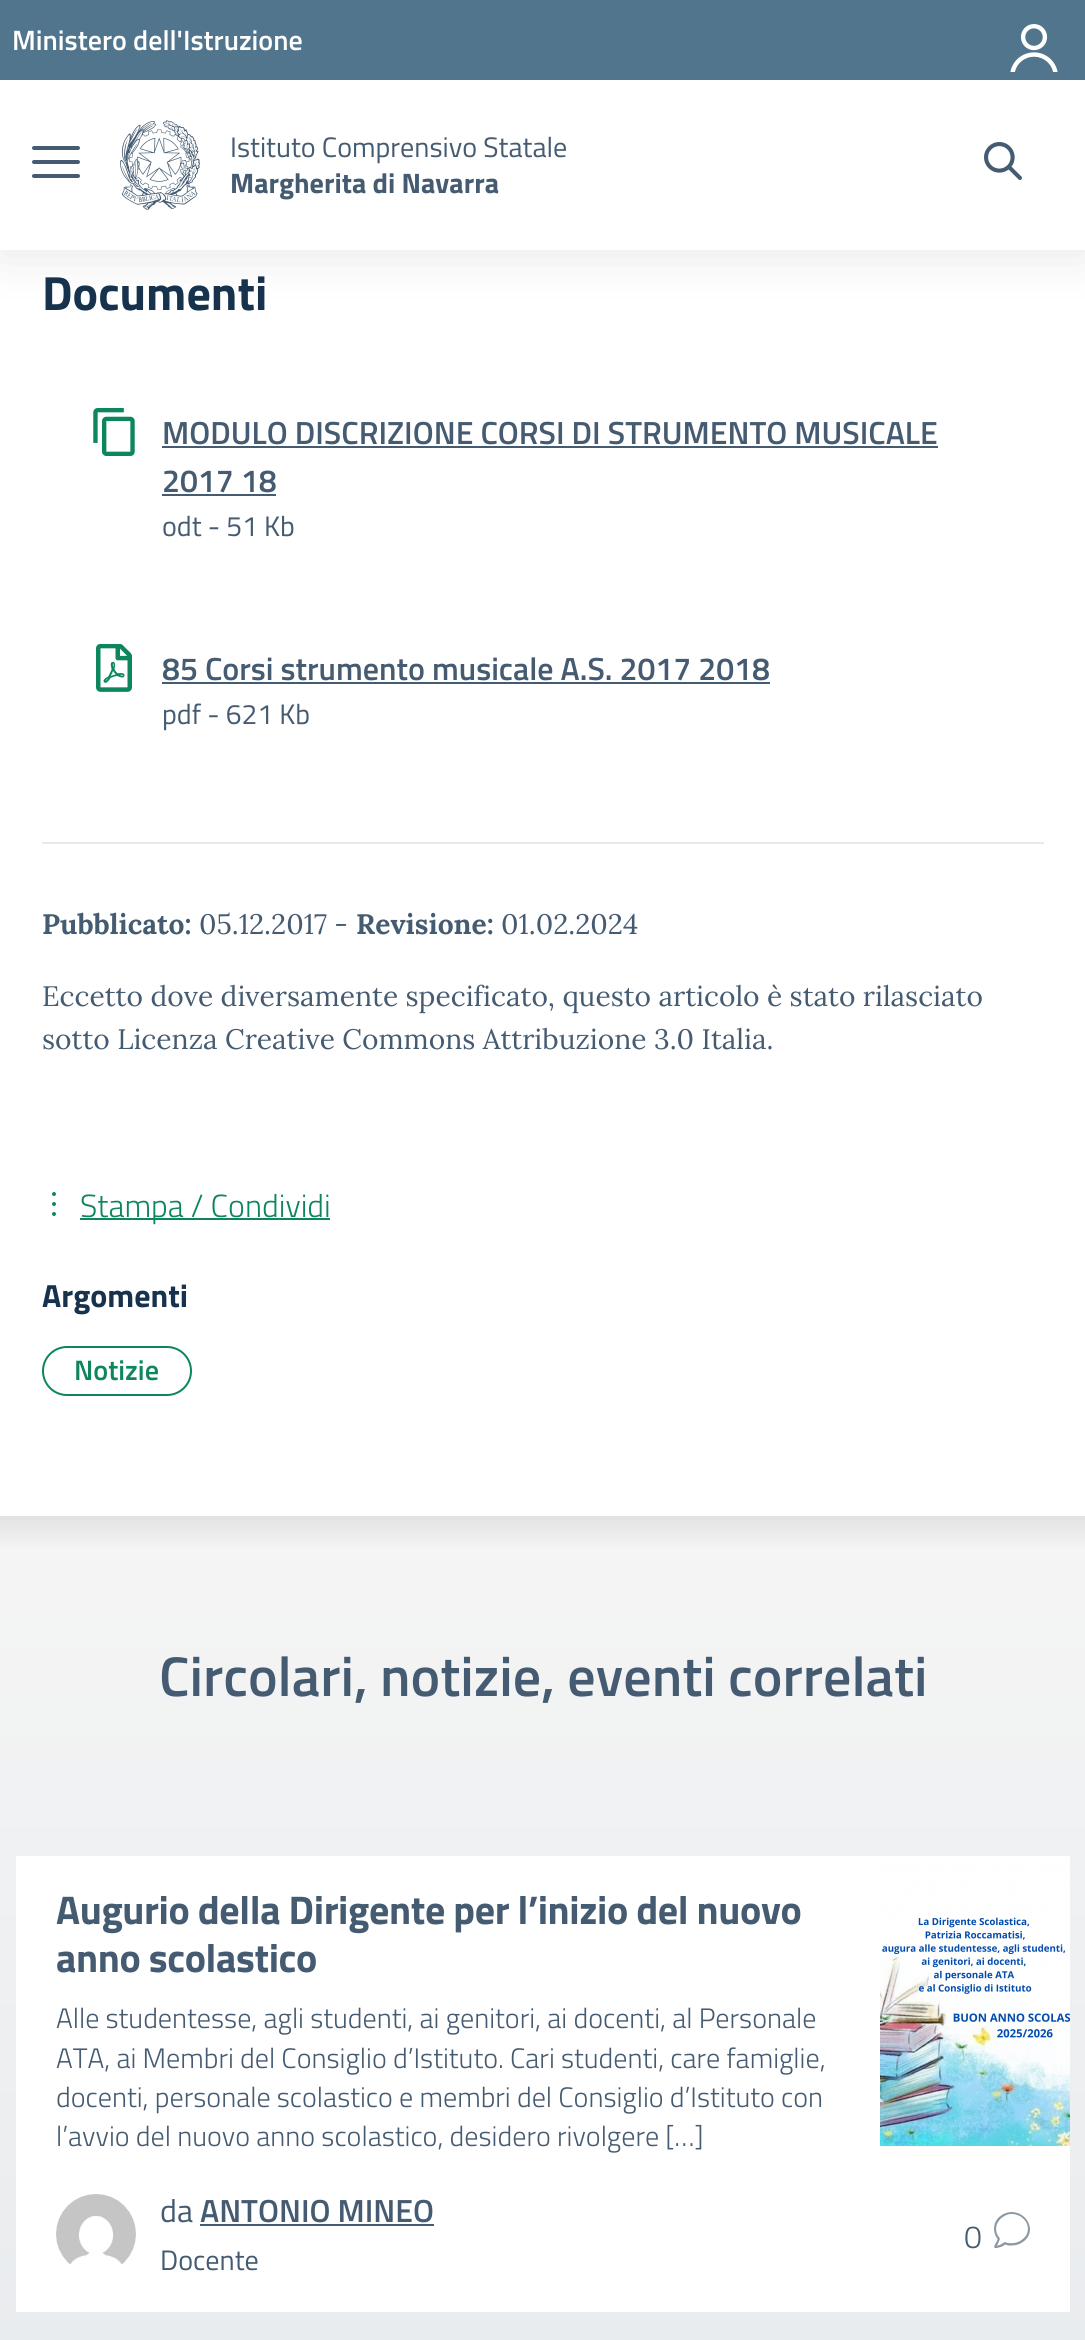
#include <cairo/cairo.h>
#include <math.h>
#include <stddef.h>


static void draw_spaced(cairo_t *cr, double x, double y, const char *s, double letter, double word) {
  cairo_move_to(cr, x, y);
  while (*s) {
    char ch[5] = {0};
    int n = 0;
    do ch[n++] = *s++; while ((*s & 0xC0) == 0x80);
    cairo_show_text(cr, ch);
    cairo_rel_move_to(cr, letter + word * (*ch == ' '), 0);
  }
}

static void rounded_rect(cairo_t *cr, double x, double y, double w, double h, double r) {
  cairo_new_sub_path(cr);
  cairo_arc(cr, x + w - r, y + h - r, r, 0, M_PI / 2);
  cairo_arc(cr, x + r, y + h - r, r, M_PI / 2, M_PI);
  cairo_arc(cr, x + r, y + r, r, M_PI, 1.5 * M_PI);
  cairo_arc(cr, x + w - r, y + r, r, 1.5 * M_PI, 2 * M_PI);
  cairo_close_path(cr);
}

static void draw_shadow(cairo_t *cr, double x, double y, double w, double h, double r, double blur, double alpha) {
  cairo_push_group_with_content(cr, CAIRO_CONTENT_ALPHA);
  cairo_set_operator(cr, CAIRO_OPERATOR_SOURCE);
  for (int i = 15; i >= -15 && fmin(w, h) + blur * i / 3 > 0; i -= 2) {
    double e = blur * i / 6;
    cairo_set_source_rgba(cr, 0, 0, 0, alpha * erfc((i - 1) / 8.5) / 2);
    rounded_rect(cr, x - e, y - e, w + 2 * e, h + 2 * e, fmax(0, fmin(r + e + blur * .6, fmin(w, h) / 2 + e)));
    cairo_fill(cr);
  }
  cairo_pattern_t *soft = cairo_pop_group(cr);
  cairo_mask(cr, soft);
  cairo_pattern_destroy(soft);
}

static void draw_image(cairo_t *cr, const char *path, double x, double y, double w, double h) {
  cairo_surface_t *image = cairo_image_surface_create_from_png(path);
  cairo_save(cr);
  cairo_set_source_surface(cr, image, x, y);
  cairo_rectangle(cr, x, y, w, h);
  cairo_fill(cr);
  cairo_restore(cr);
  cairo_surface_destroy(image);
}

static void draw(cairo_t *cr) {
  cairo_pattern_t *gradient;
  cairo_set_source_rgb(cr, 1, 1, 1);
  cairo_paint(cr);
  cairo_set_source_rgb(cr, 0, 0, 0);
  draw_shadow(cr, 0, 4, 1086, 250, 0, 25, 0.1);
  cairo_set_source_rgb(cr, 1, 1, 1);
  cairo_rectangle(cr, 0, 80, 1085, 170);
  cairo_fill(cr);
  cairo_set_source_rgb(cr, 81 / 255.0, 117 / 255.0, 141 / 255.0);
  cairo_rectangle(cr, 0, 0, 1085, 80);
  cairo_fill(cr);
  draw_image(cr, "images/1.png", 1010, 24, 48, 48);
  cairo_set_source_rgb(cr, 69 / 255.0, 91 / 255.0, 113 / 255.0);
  rounded_rect(cr, 32, 160, 48, 4, 2);
  cairo_fill(cr);
  rounded_rect(cr, 32, 146, 48, 4, 2);
  cairo_fill(cr);
  rounded_rect(cr, 32, 174, 48, 4, 2);
  cairo_fill(cr);
  draw_image(cr, "images/2.png", 120, 120, 80, 90);
  draw_image(cr, "images/3.png", 984, 142, 38, 38);
  draw_image(cr, "images/4.png", 93, 408, 42, 48);
  cairo_rectangle(cr, 162, 446, 776, 2);
  cairo_fill(cr);
  cairo_rectangle(cr, 162, 494, 114, 2);
  cairo_fill(cr);
  draw_image(cr, "images/5.png", 96, 644, 36, 48);
  cairo_rectangle(cr, 162, 682, 608, 2);
  cairo_fill(cr);
  cairo_set_source_rgb(cr, 231 / 255.0, 234 / 255.0, 237 / 255.0);
  cairo_rectangle(cr, 42, 842, 1002, 2);
  cairo_fill(cr);
  draw_image(cr, "images/6.png", 52, 1192, 4, 24);
  cairo_set_source_rgb(cr, 14 / 255.0, 134 / 255.0, 92 / 255.0);
  cairo_rectangle(cr, 80, 1218, 250, 2);
  cairo_fill(cr);
  rounded_rect(cr, 43, 1347, 148, 48, 24);
  cairo_stroke(cr);
  gradient = cairo_pattern_create_linear(543, 1516, 543, 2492);
  cairo_pattern_add_color_stop_rgba(gradient, 0, 245 / 255.0, 245 / 255.0, 245 / 255.0, 1);
  cairo_pattern_add_color_stop_rgba(gradient, 1, 231 / 255.0, 234 / 255.0, 237 / 255.0, 1);
  cairo_set_source(cr, gradient);
  cairo_pattern_destroy(gradient);
  cairo_rectangle(cr, 0, 1550, 1085, 790);
  cairo_fill(cr);
  gradient = cairo_pattern_create_linear(543, 1516, 543, 1550);
  cairo_pattern_add_color_stop_rgba(gradient, 0, 226 / 255.0, 226 / 255.0, 226 / 255.0, 1);
  cairo_pattern_add_color_stop_rgba(gradient, 1, 245 / 255.0, 245 / 255.0, 245 / 255.0, 1);
  cairo_set_source(cr, gradient);
  cairo_pattern_destroy(gradient);
  cairo_rectangle(cr, 0, 1516, 1085, 34);
  cairo_fill(cr);
  cairo_set_source_rgb(cr, 1, 1, 1);
  cairo_rectangle(cr, 16, 1856, 1054, 456);
  cairo_fill(cr);
  draw_image(cr, "images/7.png", 880, 1860, 190, 286);
  draw_image(cr, "images/8.png", 56, 2194, 80, 71);
  cairo_set_source_rgb(cr, 69 / 255.0, 91 / 255.0, 113 / 255.0);
  cairo_rectangle(cr, 200, 2224, 234, 2);
  cairo_fill(cr);
  draw_image(cr, "images/9.png", 994, 2212, 36, 36);
  cairo_select_font_face(cr, "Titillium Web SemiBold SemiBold", CAIRO_FONT_SLANT_NORMAL, CAIRO_FONT_WEIGHT_NORMAL);
  cairo_set_font_size(cr, 28);
  cairo_set_source_rgb(cr, 1, 1, 1);
  cairo_move_to(cr, 12, 50);
  cairo_show_text(cr, "Ministero dell'Istruzione");
  cairo_select_font_face(cr, "Titillium Web", CAIRO_FONT_SLANT_NORMAL, CAIRO_FONT_WEIGHT_NORMAL);
  cairo_set_font_size(cr, 28.15);
  cairo_set_source_rgb(cr, 69 / 255.0, 91 / 255.0, 113 / 255.0);
  cairo_move_to(cr, 230, 157);
  cairo_show_text(cr, "Istituto Comprensivo Statale");
  cairo_select_font_face(cr, "Titillium Web", CAIRO_FONT_SLANT_NORMAL, CAIRO_FONT_WEIGHT_BOLD);
  cairo_move_to(cr, 230, 193);
  cairo_show_text(cr, "Margherita di Navarra");
  cairo_set_font_size(cr, 48);
  cairo_set_source_rgb(cr, 23 / 255.0, 50 / 255.0, 77 / 255.0);
  cairo_move_to(cr, 42, 310);
  cairo_show_text(cr, "Documenti");
  cairo_select_font_face(cr, "Titillium Web SemiBold SemiBold", CAIRO_FONT_SLANT_NORMAL, CAIRO_FONT_WEIGHT_NORMAL);
  cairo_set_font_size(cr, 32);
  cairo_set_source_rgb(cr, 69 / 255.0, 91 / 255.0, 113 / 255.0);
  cairo_move_to(cr, 162, 444);
  cairo_show_text(cr, "MODULO DISCRIZIONE CORSI DI STRUMENTO MUSICALE");
  cairo_move_to(cr, 162, 492);
  cairo_show_text(cr, "2017 18");
  cairo_select_font_face(cr, "Titillium Web", CAIRO_FONT_SLANT_NORMAL, CAIRO_FONT_WEIGHT_NORMAL);
  cairo_set_font_size(cr, 28.15);
  cairo_move_to(cr, 162, 536);
  cairo_show_text(cr, "odt - 51 Kb");
  cairo_select_font_face(cr, "Titillium Web SemiBold SemiBold", CAIRO_FONT_SLANT_NORMAL, CAIRO_FONT_WEIGHT_NORMAL);
  cairo_set_font_size(cr, 32);
  cairo_move_to(cr, 162, 680);
  cairo_show_text(cr, "85 Corsi strumento musicale A.S. 2017 2018");
  cairo_select_font_face(cr, "Titillium Web", CAIRO_FONT_SLANT_NORMAL, CAIRO_FONT_WEIGHT_NORMAL);
  cairo_set_font_size(cr, 28.15);
  cairo_move_to(cr, 162, 724);
  cairo_show_text(cr, "pdf - 621 Kb");
  cairo_select_font_face(cr, "Lora", CAIRO_FONT_SLANT_NORMAL, CAIRO_FONT_WEIGHT_BOLD);
  cairo_move_to(cr, 42, 934);
  cairo_show_text(cr, "Pubblicato:");
  cairo_select_font_face(cr, "Lora", CAIRO_FONT_SLANT_NORMAL, CAIRO_FONT_WEIGHT_NORMAL);
  cairo_move_to(cr, 199, 934);
  cairo_show_text(cr, "05.12.2017 -");
  cairo_select_font_face(cr, "Lora", CAIRO_FONT_SLANT_NORMAL, CAIRO_FONT_WEIGHT_BOLD);
  cairo_move_to(cr, 356, 934);
  cairo_show_text(cr, "Revisione:");
  cairo_select_font_face(cr, "Lora", CAIRO_FONT_SLANT_NORMAL, CAIRO_FONT_WEIGHT_NORMAL);
  cairo_move_to(cr, 501, 934);
  cairo_show_text(cr, "01.02.2024");
  cairo_move_to(cr, 42, 1006);
  cairo_show_text(cr, "Eccetto dove diversamente specificato, questo articolo è stato rilasciato");
  cairo_move_to(cr, 42, 1049);
  cairo_show_text(cr, "sotto Licenza Creative Commons Attribuzione 3.0 Italia.");
  cairo_select_font_face(cr, "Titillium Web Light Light", CAIRO_FONT_SLANT_NORMAL, CAIRO_FONT_WEIGHT_NORMAL);
  cairo_set_font_size(cr, 32);
  cairo_set_source_rgb(cr, 14 / 255.0, 134 / 255.0, 92 / 255.0);
  cairo_move_to(cr, 80, 1217);
  cairo_show_text(cr, "Stampa / Condividi");
  cairo_select_font_face(cr, "Titillium Web", CAIRO_FONT_SLANT_NORMAL, CAIRO_FONT_WEIGHT_BOLD);
  cairo_set_source_rgb(cr, 23 / 255.0, 50 / 255.0, 77 / 255.0);
  cairo_move_to(cr, 42, 1307);
  cairo_show_text(cr, "Argomenti");
  cairo_select_font_face(cr, "Titillium Web SemiBold SemiBold", CAIRO_FONT_SLANT_NORMAL, CAIRO_FONT_WEIGHT_NORMAL);
  cairo_set_font_size(cr, 28.15);
  cairo_set_source_rgb(cr, 14 / 255.0, 134 / 255.0, 92 / 255.0);
  cairo_move_to(cr, 74, 1380);
  cairo_show_text(cr, "Notizie");
  cairo_set_font_size(cr, 56);
  cairo_set_source_rgb(cr, 69 / 255.0, 91 / 255.0, 113 / 255.0);
  cairo_move_to(cr, 159, 1696);
  cairo_show_text(cr, "Circolari, notizie, eventi correlati");
  cairo_select_font_face(cr, "Titillium Web", CAIRO_FONT_SLANT_NORMAL, CAIRO_FONT_WEIGHT_BOLD);
  cairo_set_font_size(cr, 40);
  draw_spaced(cr, 56, 1924, "Augurio della Dirigente per l’inizio del nuovo", -0.4, 0);
  draw_spaced(cr, 56, 1972, "anno scolastico", -0.4, 0);
  cairo_select_font_face(cr, "Titillium Web Light Light", CAIRO_FONT_SLANT_NORMAL, CAIRO_FONT_WEIGHT_NORMAL);
  cairo_set_font_size(cr, 28.15);
  cairo_move_to(cr, 56, 2028);
  cairo_show_text(cr, "Alle studentesse, agli studenti, ai genitori, ai docenti, al Personale");
  cairo_move_to(cr, 56, 2068);
  cairo_show_text(cr, "ATA, ai Membri del Consiglio d’Istituto. Cari studenti, care famiglie,");
  cairo_move_to(cr, 56, 2107);
  cairo_show_text(cr, "docenti, personale scolastico e membri del Consiglio d’Istituto con");
  cairo_move_to(cr, 56, 2146);
  cairo_show_text(cr, "l’avvio del nuovo anno scolastico, desidero rivolgere […]");
  cairo_select_font_face(cr, "Titillium Web", CAIRO_FONT_SLANT_NORMAL, CAIRO_FONT_WEIGHT_NORMAL);
  cairo_set_font_size(cr, 32);
  cairo_move_to(cr, 160, 2222);
  cairo_show_text(cr, "da");
  cairo_select_font_face(cr, "Titillium Web SemiBold SemiBold", CAIRO_FONT_SLANT_NORMAL, CAIRO_FONT_WEIGHT_NORMAL);
  cairo_move_to(cr, 200, 2222);
  cairo_show_text(cr, "ANTONIO MINEO");
  cairo_select_font_face(cr, "Titillium Web", CAIRO_FONT_SLANT_NORMAL, CAIRO_FONT_WEIGHT_NORMAL);
  cairo_set_font_size(cr, 28.15);
  cairo_move_to(cr, 160, 2270);
  cairo_show_text(cr, "Docente");
  cairo_select_font_face(cr, "Titillium Web Light Light", CAIRO_FONT_SLANT_NORMAL, CAIRO_FONT_WEIGHT_NORMAL);
  cairo_set_font_size(cr, 32);
  cairo_move_to(cr, 964, 2248);
  cairo_show_text(cr, "0");
}

int main(void) {
  cairo_surface_t *surface = cairo_image_surface_create(CAIRO_FORMAT_RGB24, 1085, 2340);
  cairo_t *cr = cairo_create(surface);
  cairo_font_options_t *options = cairo_font_options_create();
  cairo_font_options_set_hint_metrics(options, CAIRO_HINT_METRICS_OFF);
  cairo_font_options_set_hint_style(options, CAIRO_HINT_STYLE_NONE);
  cairo_set_font_options(cr, options);
  cairo_set_miter_limit(cr, 4);
  draw(cr);
  cairo_surface_write_to_png(surface, "out.png");
  cairo_font_options_destroy(options);
  cairo_destroy(cr);
  cairo_surface_destroy(surface);
  return 0;
}
